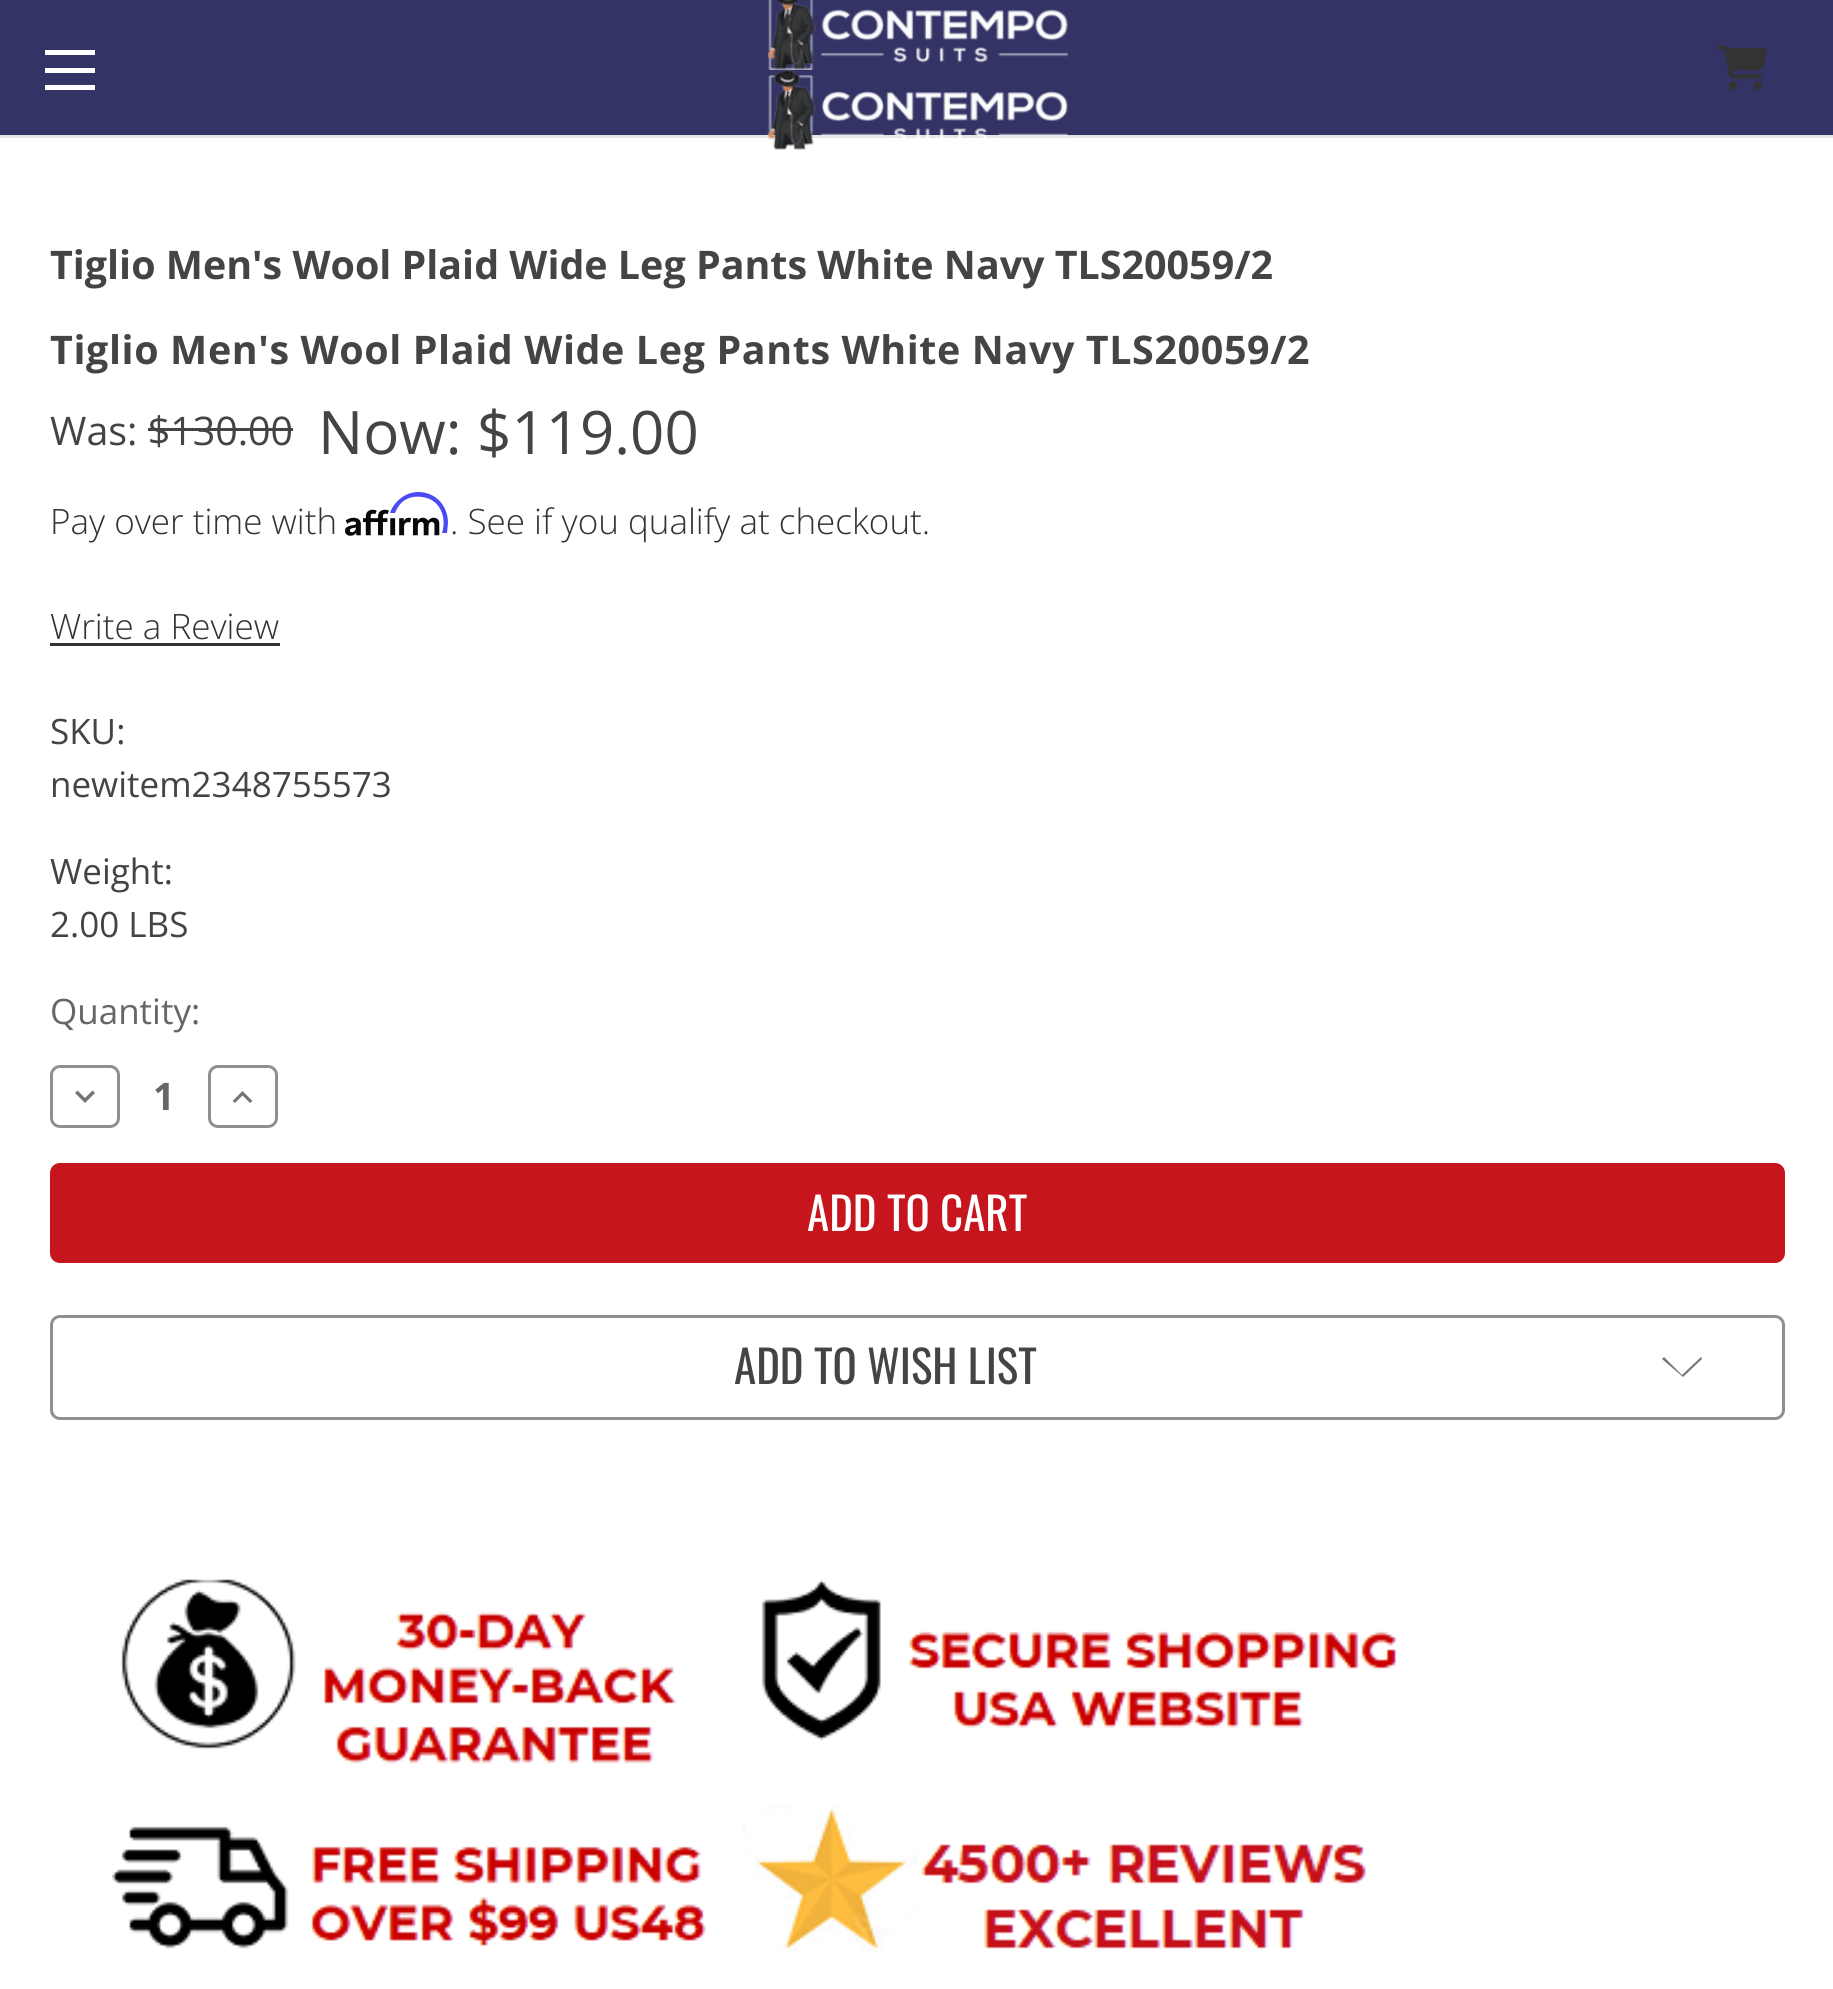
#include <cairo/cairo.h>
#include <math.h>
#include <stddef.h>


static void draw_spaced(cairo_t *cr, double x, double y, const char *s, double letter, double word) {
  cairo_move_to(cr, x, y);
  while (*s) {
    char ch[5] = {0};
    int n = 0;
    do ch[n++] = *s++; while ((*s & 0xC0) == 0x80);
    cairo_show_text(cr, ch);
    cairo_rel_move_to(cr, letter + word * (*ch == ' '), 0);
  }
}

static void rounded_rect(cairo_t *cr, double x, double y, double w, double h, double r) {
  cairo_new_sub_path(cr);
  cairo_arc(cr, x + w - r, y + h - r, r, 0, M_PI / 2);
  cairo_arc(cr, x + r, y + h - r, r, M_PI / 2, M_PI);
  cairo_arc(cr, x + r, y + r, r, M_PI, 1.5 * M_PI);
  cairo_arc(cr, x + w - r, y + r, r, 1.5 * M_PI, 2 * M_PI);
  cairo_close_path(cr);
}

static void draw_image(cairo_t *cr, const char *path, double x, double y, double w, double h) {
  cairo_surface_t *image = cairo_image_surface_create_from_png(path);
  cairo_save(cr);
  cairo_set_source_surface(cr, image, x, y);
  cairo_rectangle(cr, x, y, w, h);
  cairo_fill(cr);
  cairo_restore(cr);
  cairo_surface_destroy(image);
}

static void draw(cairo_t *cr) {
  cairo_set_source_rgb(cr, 1, 1, 1);
  cairo_paint(cr);
  cairo_set_source_rgb(cr, 51 / 255.0, 51 / 255.0, 102 / 255.0);
  cairo_rectangle(cr, 0, 0, 1833, 135);
  cairo_fill(cr);
  cairo_set_source_rgb(cr, 229 / 255.0, 229 / 255.0, 229 / 255.0);
  cairo_rectangle(cr, 0, 135, 1833, 3);
  cairo_fill(cr);
  cairo_set_source_rgb(cr, 1, 1, 1);
  cairo_rectangle(cr, 45, 68, 50, 5);
  cairo_fill(cr);
  cairo_rectangle(cr, 45, 50, 50, 5);
  cairo_fill(cr);
  cairo_rectangle(cr, 45, 85, 50, 5);
  cairo_fill(cr);
  draw_image(cr, "images/1.png", 768, 0, 300, 70);
  draw_image(cr, "images/2.png", 767, 69, 301, 81);
  draw_image(cr, "images/3.png", 1718, 45, 49, 45);
  cairo_set_source_rgb(cr, 68 / 255.0, 68 / 255.0, 68 / 255.0);
  cairo_rectangle(cr, 148, 428, 145, 3);
  cairo_fill(cr);
  draw_image(cr, "images/4.png", 345, 509, 95, 27);
  cairo_set_source_rgb(cr, 74 / 255.0, 74 / 255.0, 244 / 255.0);
  cairo_new_path(cr);
  cairo_move_to(cr, 418, 492);
  cairo_curve_to(cr, 406, 492, 394, 501, 390, 513);
  cairo_line_to(cr, 395, 513);
  cairo_curve_to(cr, 397, 508, 400, 503, 405, 500);
  cairo_curve_to(cr, 410, 497, 416, 496, 422, 497);
  cairo_curve_to(cr, 440, 499, 447, 517, 442, 533);
  cairo_line_to(cr, 447, 533);
  cairo_line_to(cr, 448, 523);
  cairo_curve_to(cr, 448, 506, 436, 492, 418, 492);
  cairo_close_path(cr);
  cairo_fill(cr);
  cairo_set_source_rgb(cr, 51 / 255.0, 51 / 255.0, 51 / 255.0);
  cairo_rectangle(cr, 50, 643, 230, 3);
  cairo_fill(cr);
  rounded_rect(cr, 51.5, 1066.5, 67, 60, 8.5);
  cairo_set_source_rgb(cr, 143 / 255.0, 143 / 255.0, 143 / 255.0);
  cairo_set_line_width(cr, 3);
  cairo_stroke(cr);
  cairo_set_source_rgb(cr, 117 / 255.0, 117 / 255.0, 117 / 255.0);
  cairo_new_path(cr);
  cairo_move_to(cr, 77.5, 1090.5);
  cairo_line_to(cr, 85, 1098);
  cairo_line_to(cr, 92.5, 1090.5);
  cairo_line_to(cr, 95, 1093);
  cairo_line_to(cr, 85, 1103);
  cairo_line_to(cr, 75, 1093);
  cairo_close_path(cr);
  cairo_fill(cr);
  rounded_rect(cr, 209.5, 1066.5, 67, 60, 8.5);
  cairo_set_source_rgb(cr, 143 / 255.0, 143 / 255.0, 143 / 255.0);
  cairo_stroke(cr);
  cairo_set_source_rgb(cr, 117 / 255.0, 117 / 255.0, 117 / 255.0);
  cairo_new_path(cr);
  cairo_move_to(cr, 235, 1103);
  cairo_line_to(cr, 242.5, 1095.5);
  cairo_line_to(cr, 250, 1103);
  cairo_line_to(cr, 252.5, 1101);
  cairo_line_to(cr, 242.5, 1091);
  cairo_line_to(cr, 232.5, 1101);
  cairo_close_path(cr);
  cairo_fill(cr);
  cairo_set_source_rgb(cr, 198 / 255.0, 21 / 255.0, 29 / 255.0);
  rounded_rect(cr, 50, 1163, 1735, 100, 10);
  cairo_fill(cr);
  rounded_rect(cr, 51.5, 1316.5, 1732, 102, 8.5);
  cairo_set_source_rgb(cr, 143 / 255.0, 143 / 255.0, 143 / 255.0);
  cairo_stroke(cr);
  cairo_set_source_rgb(cr, 117 / 255.0, 117 / 255.0, 117 / 255.0);
  cairo_set_fill_rule(cr, CAIRO_FILL_RULE_EVEN_ODD);
  cairo_new_path(cr);
  cairo_move_to(cr, 1682, 1375);
  cairo_line_to(cr, 1701, 1357);
  cairo_line_to(cr, 1702, 1359);
  cairo_line_to(cr, 1683, 1377);
  cairo_line_to(cr, 1662, 1359);
  cairo_line_to(cr, 1664, 1357);
  cairo_close_path(cr);
  cairo_fill(cr);
  draw_image(cr, "images/5.png", 111, 1579, 1287, 373);
  cairo_select_font_face(cr, "Open Sans", CAIRO_FONT_SLANT_NORMAL, CAIRO_FONT_WEIGHT_BOLD);
  cairo_set_font_size(cr, 39.4);
  cairo_set_source_rgb(cr, 68 / 255.0, 68 / 255.0, 68 / 255.0);
  cairo_move_to(cr, 50, 279);
  cairo_show_text(cr, "Tiglio Men's Wool Plaid Wide Leg Pants White Navy TLS20059/2");
  draw_spaced(cr, 50, 364, "Tiglio Men's Wool Plaid Wide Leg Pants White Navy TLS20059/2", 0.62, 0);
  cairo_select_font_face(cr, "Open Sans", CAIRO_FONT_SLANT_NORMAL, CAIRO_FONT_WEIGHT_NORMAL);
  cairo_move_to(cr, 50, 445);
  cairo_show_text(cr, "Was: $130.00");
  cairo_set_font_size(cr, 60);
  cairo_move_to(cr, 318, 454);
  cairo_show_text(cr, "Now: $119.00");
  cairo_select_font_face(cr, "Open Sans Light", CAIRO_FONT_SLANT_NORMAL, CAIRO_FONT_WEIGHT_NORMAL);
  cairo_set_font_size(cr, 35);
  cairo_set_source_rgb(cr, 51 / 255.0, 51 / 255.0, 51 / 255.0);
  cairo_move_to(cr, 50, 534);
  cairo_show_text(cr, "Pay over time with");
  cairo_move_to(cr, 450, 534);
  cairo_show_text(cr, ". See if you qualify at checkout.");
  cairo_move_to(cr, 50, 639);
  cairo_show_text(cr, "Write a Review");
  cairo_select_font_face(cr, "Open Sans", CAIRO_FONT_SLANT_NORMAL, CAIRO_FONT_WEIGHT_NORMAL);
  cairo_set_source_rgb(cr, 68 / 255.0, 68 / 255.0, 68 / 255.0);
  cairo_move_to(cr, 50, 744);
  cairo_show_text(cr, "SKU:");
  cairo_move_to(cr, 50, 797);
  cairo_show_text(cr, "newitem2348755573");
  cairo_move_to(cr, 50, 884);
  cairo_show_text(cr, "Weight:");
  cairo_move_to(cr, 50, 937);
  cairo_show_text(cr, "2.00 LBS");
  cairo_set_source_rgb(cr, 102 / 255.0, 102 / 255.0, 102 / 255.0);
  cairo_move_to(cr, 50, 1024);
  cairo_show_text(cr, "Quantity:");
  cairo_select_font_face(cr, "Open Sans", CAIRO_FONT_SLANT_NORMAL, CAIRO_FONT_WEIGHT_BOLD);
  cairo_set_font_size(cr, 38);
  cairo_move_to(cr, 153, 1110);
  cairo_show_text(cr, "1");
  cairo_select_font_face(cr, "Oswald", CAIRO_FONT_SLANT_NORMAL, CAIRO_FONT_WEIGHT_NORMAL);
  cairo_set_font_size(cr, 45);
  cairo_set_source_rgb(cr, 1, 1, 1);
  cairo_move_to(cr, 807, 1231);
  cairo_show_text(cr, "ADD TO CART");
  cairo_set_source_rgb(cr, 68 / 255.0, 68 / 255.0, 68 / 255.0);
  cairo_move_to(cr, 734, 1384);
  cairo_show_text(cr, "ADD TO WISH LIST");
}

int main(void) {
  cairo_surface_t *surface = cairo_image_surface_create(CAIRO_FORMAT_RGB24, 1833, 1989);
  cairo_t *cr = cairo_create(surface);
  cairo_font_options_t *options = cairo_font_options_create();
  cairo_font_options_set_hint_metrics(options, CAIRO_HINT_METRICS_OFF);
  cairo_font_options_set_hint_style(options, CAIRO_HINT_STYLE_NONE);
  cairo_set_font_options(cr, options);
  cairo_set_miter_limit(cr, 4);
  draw(cr);
  cairo_surface_write_to_png(surface, "out.png");
  cairo_font_options_destroy(options);
  cairo_destroy(cr);
  cairo_surface_destroy(surface);
  return 0;
}
